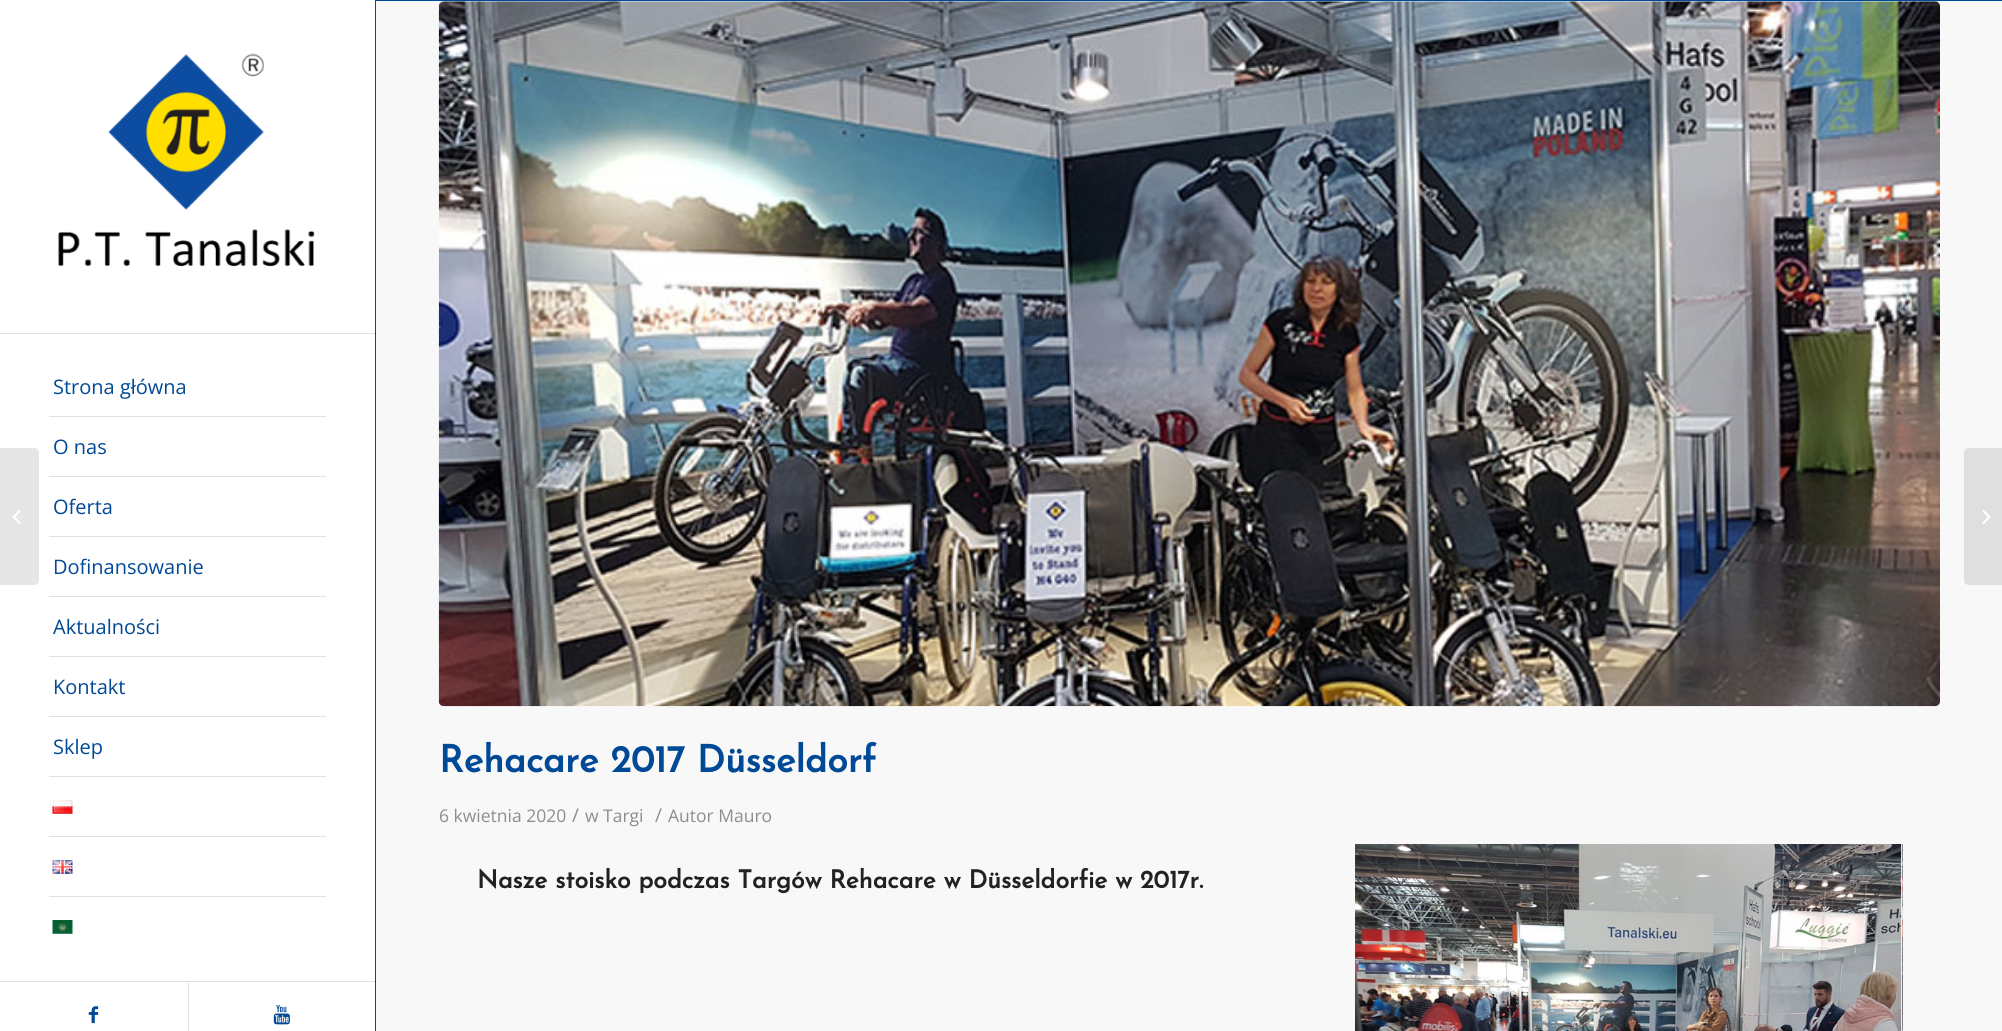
#include <cairo/cairo.h>
#include <math.h>
#include <stddef.h>


static void draw_image(cairo_t *cr, const char *path, double x, double y, double w, double h) {
  cairo_surface_t *image = cairo_image_surface_create_from_png(path);
  cairo_save(cr);
  cairo_set_source_surface(cr, image, x, y);
  cairo_rectangle(cr, x, y, w, h);
  cairo_fill(cr);
  cairo_restore(cr);
  cairo_surface_destroy(image);
}

static void draw(cairo_t *cr) {
  cairo_set_source_rgb(cr, 1, 1, 1);
  cairo_paint(cr);
  cairo_set_source_rgb(cr, 230 / 255.0, 230 / 255.0, 230 / 255.0);
  cairo_new_path(cr);
  cairo_move_to(cr, 0, 448);
  cairo_line_to(cr, 34, 448);
  cairo_curve_to(cr, 37, 448, 39, 450, 39, 453);
  cairo_line_to(cr, 39, 580);
  cairo_curve_to(cr, 39, 583, 37, 585, 34, 585);
  cairo_line_to(cr, 0, 585);
  cairo_close_path(cr);
  cairo_fill(cr);
  draw_image(cr, "images/1.png", 12, 510, 9, 14);
  cairo_set_source_rgb(cr, 225 / 255.0, 225 / 255.0, 225 / 255.0);
  cairo_rectangle(cr, 0, 333, 375, 1);
  cairo_fill(cr);
  draw_image(cr, "images/2.png", 58, 53, 257, 214);
  cairo_rectangle(cr, 49, 416, 277, 1);
  cairo_fill(cr);
  cairo_rectangle(cr, 49, 476, 277, 1);
  cairo_fill(cr);
  cairo_rectangle(cr, 49, 536, 277, 1);
  cairo_fill(cr);
  cairo_rectangle(cr, 49, 596, 277, 1);
  cairo_fill(cr);
  cairo_rectangle(cr, 49, 656, 277, 1);
  cairo_fill(cr);
  cairo_rectangle(cr, 49, 716, 277, 1);
  cairo_fill(cr);
  cairo_rectangle(cr, 49, 776, 277, 1);
  cairo_fill(cr);
  cairo_rectangle(cr, 49, 836, 277, 1);
  cairo_fill(cr);
  draw_image(cr, "images/3.png", 52, 800, 21, 14);
  cairo_rectangle(cr, 49, 896, 277, 1);
  cairo_fill(cr);
  draw_image(cr, "images/4.png", 52, 860, 21, 14);
  draw_image(cr, "images/5.png", 52, 920, 21, 14);
  cairo_rectangle(cr, 0, 981, 375, 1);
  cairo_fill(cr);
  draw_image(cr, "images/6.png", 88, 1006, 11, 18);
  cairo_rectangle(cr, 188, 983, 1, 48);
  cairo_fill(cr);
  draw_image(cr, "images/7.png", 273, 1005, 17, 20);
  cairo_set_source_rgb(cr, 248 / 255.0, 248 / 255.0, 248 / 255.0);
  cairo_rectangle(cr, 376, 1, 1626, 1030);
  cairo_fill(cr);
  cairo_set_source_rgb(cr, 223 / 255.0, 223 / 255.0, 223 / 255.0);
  cairo_new_path(cr);
  cairo_move_to(cr, 1969, 448);
  cairo_line_to(cr, 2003, 448);
  cairo_line_to(cr, 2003, 585);
  cairo_line_to(cr, 1969, 585);
  cairo_curve_to(cr, 1966, 585, 1964, 583, 1964, 580);
  cairo_line_to(cr, 1964, 453);
  cairo_curve_to(cr, 1964, 450, 1966, 448, 1969, 448);
  cairo_close_path(cr);
  cairo_fill(cr);
  draw_image(cr, "images/8.png", 1982, 510, 9, 14);
  cairo_set_source_rgb(cr, 0, 73 / 255.0, 150 / 255.0);
  cairo_rectangle(cr, 375, 0, 1, 1031);
  cairo_fill(cr);
  cairo_rectangle(cr, 376, 0, 1626, 1);
  cairo_fill(cr);
  draw_image(cr, "images/9.png", 438, 1, 1502, 706);
  draw_image(cr, "images/10.png", 1355, 844, 547, 187);
  draw_image(cr, "images/11.png", 1902, 844, 1, 187);
  cairo_select_font_face(cr, "Open Sans", CAIRO_FONT_SLANT_NORMAL, CAIRO_FONT_WEIGHT_NORMAL);
  cairo_set_font_size(cr, 20);
  cairo_move_to(cr, 53, 394);
  cairo_show_text(cr, "Strona główna");
  cairo_move_to(cr, 53, 454);
  cairo_show_text(cr, "O nas");
  cairo_move_to(cr, 53, 514);
  cairo_show_text(cr, "Oferta");
  cairo_move_to(cr, 53, 574);
  cairo_show_text(cr, "Dofinansowanie");
  cairo_move_to(cr, 53, 634);
  cairo_show_text(cr, "Aktualności");
  cairo_move_to(cr, 53, 694);
  cairo_show_text(cr, "Kontakt");
  cairo_move_to(cr, 53, 754);
  cairo_show_text(cr, "Sklep");
  cairo_select_font_face(cr, "Josefin Sans", CAIRO_FONT_SLANT_NORMAL, CAIRO_FONT_WEIGHT_BOLD);
  cairo_set_font_size(cr, 37.5);
  cairo_move_to(cr, 439, 772);
  cairo_show_text(cr, "Rehacare 2017 Düsseldorf");
  cairo_select_font_face(cr, "Open Sans", CAIRO_FONT_SLANT_NORMAL, CAIRO_FONT_WEIGHT_NORMAL);
  cairo_set_font_size(cr, 17.5);
  cairo_set_source_rgb(cr, 141 / 255.0, 141 / 255.0, 141 / 255.0);
  cairo_move_to(cr, 439, 822);
  cairo_show_text(cr, "6 kwietnia 2020");
  cairo_set_font_size(cr, 19);
  cairo_move_to(cr, 572, 822);
  cairo_show_text(cr, "/");
  cairo_set_font_size(cr, 17.5);
  cairo_move_to(cr, 585, 822);
  cairo_show_text(cr, "w Targi");
  cairo_set_font_size(cr, 19);
  cairo_move_to(cr, 655, 822);
  cairo_show_text(cr, "/");
  cairo_set_font_size(cr, 17.5);
  cairo_move_to(cr, 668, 822);
  cairo_show_text(cr, "Autor Mauro");
  cairo_select_font_face(cr, "Josefin Sans", CAIRO_FONT_SLANT_NORMAL, CAIRO_FONT_WEIGHT_BOLD);
  cairo_set_font_size(cr, 25);
  cairo_set_source_rgb(cr, 34 / 255.0, 34 / 255.0, 34 / 255.0);
  cairo_move_to(cr, 477, 888);
  cairo_show_text(cr, "Nasze stoisko podczas Targów Rehacare w Düsseldorfie w 2017r.");
}

int main(void) {
  cairo_surface_t *surface = cairo_image_surface_create(CAIRO_FORMAT_RGB24, 2002, 1031);
  cairo_t *cr = cairo_create(surface);
  cairo_font_options_t *options = cairo_font_options_create();
  cairo_font_options_set_hint_metrics(options, CAIRO_HINT_METRICS_OFF);
  cairo_font_options_set_hint_style(options, CAIRO_HINT_STYLE_NONE);
  cairo_set_font_options(cr, options);
  cairo_set_miter_limit(cr, 4);
  draw(cr);
  cairo_surface_write_to_png(surface, "out.png");
  cairo_font_options_destroy(options);
  cairo_destroy(cr);
  cairo_surface_destroy(surface);
  return 0;
}
